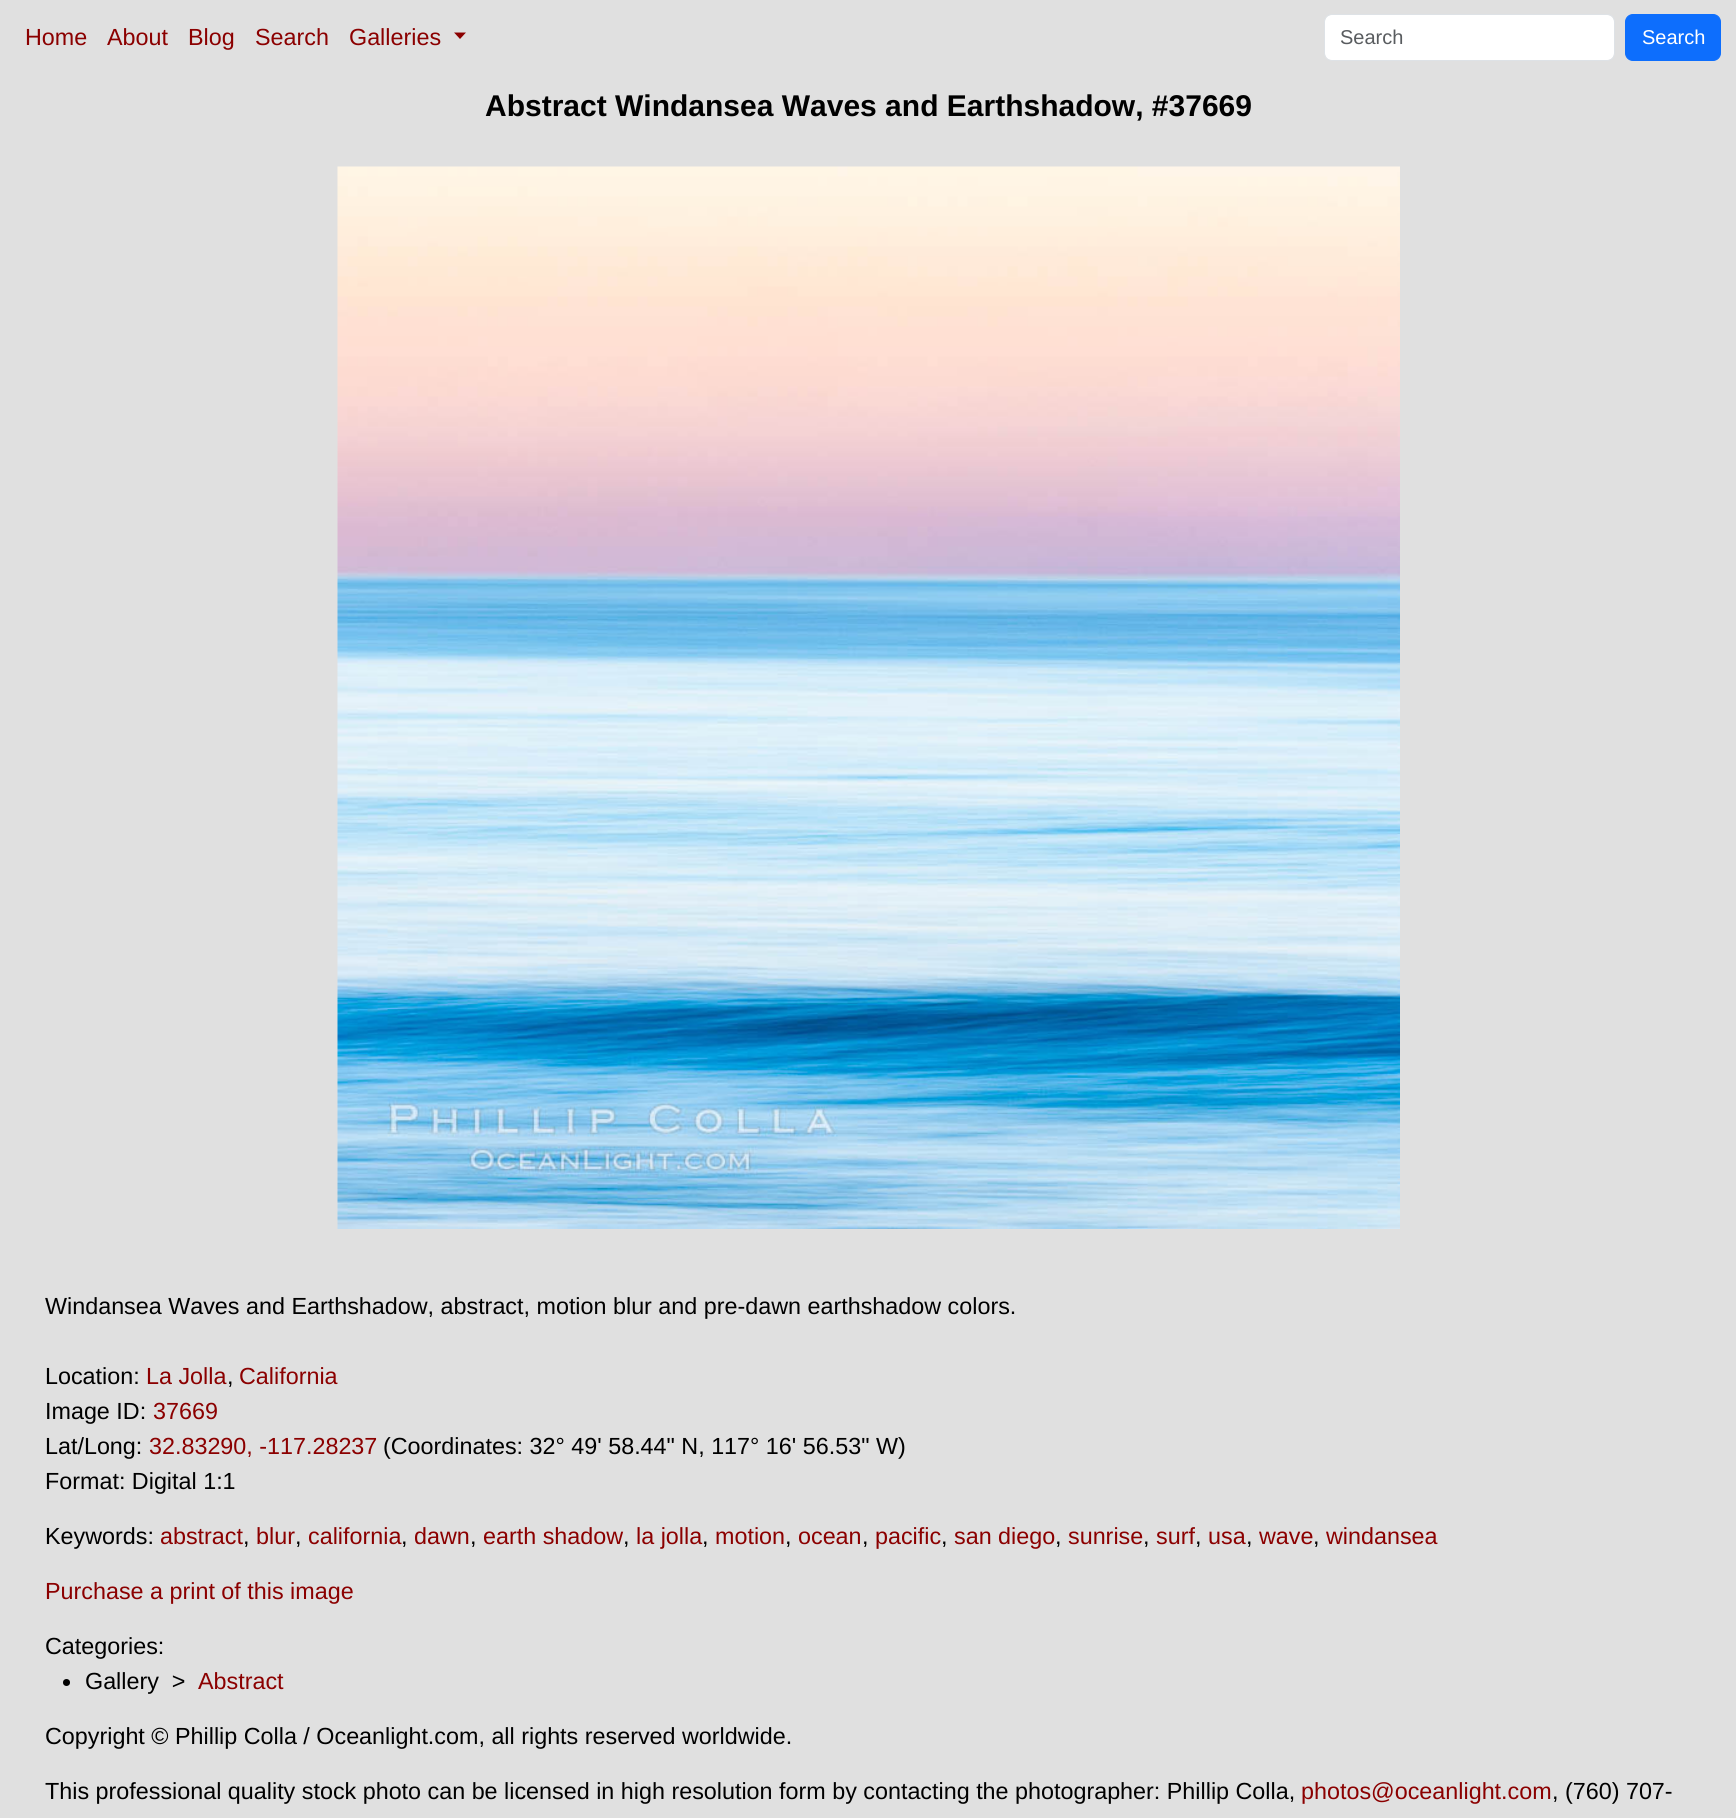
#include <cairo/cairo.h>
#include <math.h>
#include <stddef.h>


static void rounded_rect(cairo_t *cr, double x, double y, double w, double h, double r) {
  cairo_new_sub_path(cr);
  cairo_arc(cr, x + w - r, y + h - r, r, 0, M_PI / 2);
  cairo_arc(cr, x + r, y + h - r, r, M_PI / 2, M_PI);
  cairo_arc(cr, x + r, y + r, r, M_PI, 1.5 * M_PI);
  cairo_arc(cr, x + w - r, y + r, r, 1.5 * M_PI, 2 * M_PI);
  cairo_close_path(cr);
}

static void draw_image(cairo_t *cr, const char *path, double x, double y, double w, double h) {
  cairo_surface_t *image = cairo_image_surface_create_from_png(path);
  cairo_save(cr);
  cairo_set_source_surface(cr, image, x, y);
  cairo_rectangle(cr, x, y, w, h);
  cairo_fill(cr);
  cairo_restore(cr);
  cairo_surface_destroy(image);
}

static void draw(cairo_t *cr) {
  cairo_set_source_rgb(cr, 224 / 255.0, 224 / 255.0, 224 / 255.0);
  cairo_paint(cr);
  cairo_set_source_rgb(cr, 139 / 255.0, 0, 0);
  cairo_new_path(cr);
  cairo_move_to(cr, 454, 32.5);
  cairo_line_to(cr, 466, 32.5);
  cairo_line_to(cr, 460, 39);
  cairo_close_path(cr);
  cairo_fill(cr);
  cairo_set_source_rgb(cr, 1, 1, 1);
  rounded_rect(cr, 1325, 15, 289, 45, 6);
  cairo_fill(cr);
  rounded_rect(cr, 1324.5, 14.5, 290, 46, 7.5);
  cairo_set_source_rgb(cr, 222 / 255.0, 226 / 255.0, 230 / 255.0);
  cairo_set_line_width(cr, 1);
  cairo_stroke(cr);
  cairo_set_source_rgb(cr, 13 / 255.0, 110 / 255.0, 253 / 255.0);
  rounded_rect(cr, 1625.5, 14.5, 95, 46, 7.5);
  cairo_fill_preserve(cr);
  cairo_stroke(cr);
  draw_image(cr, "images/1.png", 337, 166, 1063, 1063);
  cairo_set_source_rgb(cr, 0, 0, 0);
  cairo_arc(cr, 66.5, 1682.5, 3.5, 0, 2 * M_PI);
  cairo_fill(cr);
  cairo_select_font_face(cr, "Liberation Sans", CAIRO_FONT_SLANT_NORMAL, CAIRO_FONT_WEIGHT_NORMAL);
  cairo_set_font_size(cr, 23.33);
  cairo_set_source_rgb(cr, 139 / 255.0, 0, 0);
  cairo_move_to(cr, 25, 45);
  cairo_show_text(cr, "Home");
  cairo_move_to(cr, 107, 45);
  cairo_show_text(cr, "About");
  cairo_move_to(cr, 188, 45);
  cairo_show_text(cr, "Blog");
  cairo_move_to(cr, 255, 45);
  cairo_show_text(cr, "Search");
  cairo_move_to(cr, 349, 45);
  cairo_show_text(cr, "Galleries");
  cairo_set_font_size(cr, 20);
  cairo_set_source_rgb(cr, 89 / 255.0, 92 / 255.0, 95 / 255.0);
  cairo_move_to(cr, 1340, 44);
  cairo_show_text(cr, "Search");
  cairo_set_source_rgb(cr, 1, 1, 1);
  cairo_move_to(cr, 1642, 44);
  cairo_show_text(cr, "Search");
  cairo_select_font_face(cr, "Liberation Sans", CAIRO_FONT_SLANT_NORMAL, CAIRO_FONT_WEIGHT_BOLD);
  cairo_set_font_size(cr, 30);
  cairo_set_source_rgb(cr, 0, 0, 0);
  cairo_move_to(cr, 485, 116);
  cairo_show_text(cr, "Abstract Windansea Waves and Earthshadow, #37669");
  cairo_select_font_face(cr, "Liberation Sans", CAIRO_FONT_SLANT_NORMAL, CAIRO_FONT_WEIGHT_NORMAL);
  cairo_set_font_size(cr, 23.33);
  cairo_move_to(cr, 45, 1314);
  cairo_show_text(cr, "Windansea Waves and Earthshadow, abstract, motion blur and pre-dawn earthshadow colors.");
  cairo_move_to(cr, 45, 1384);
  cairo_show_text(cr, "Location:");
  cairo_set_source_rgb(cr, 139 / 255.0, 0, 0);
  cairo_move_to(cr, 146, 1384);
  cairo_show_text(cr, "La Jolla");
  cairo_set_source_rgb(cr, 0, 0, 0);
  cairo_move_to(cr, 227, 1384);
  cairo_show_text(cr, ",");
  cairo_set_source_rgb(cr, 139 / 255.0, 0, 0);
  cairo_move_to(cr, 239, 1384);
  cairo_show_text(cr, "California");
  cairo_set_source_rgb(cr, 0, 0, 0);
  cairo_move_to(cr, 45, 1419);
  cairo_show_text(cr, "Image ID:");
  cairo_set_source_rgb(cr, 139 / 255.0, 0, 0);
  cairo_move_to(cr, 153, 1419);
  cairo_show_text(cr, "37669");
  cairo_set_source_rgb(cr, 0, 0, 0);
  cairo_move_to(cr, 45, 1454);
  cairo_show_text(cr, "Lat/Long:");
  cairo_set_source_rgb(cr, 139 / 255.0, 0, 0);
  cairo_move_to(cr, 149, 1454);
  cairo_show_text(cr, "32.83290, -117.28237");
  cairo_set_source_rgb(cr, 0, 0, 0);
  cairo_move_to(cr, 383, 1454);
  cairo_show_text(cr, "(Coordinates: 32° 49' 58.44\" N, 117° 16' 56.53\" W)");
  cairo_move_to(cr, 45, 1489);
  cairo_show_text(cr, "Format: Digital 1:1");
  cairo_move_to(cr, 45, 1544);
  cairo_show_text(cr, "Keywords:");
  cairo_set_source_rgb(cr, 139 / 255.0, 0, 0);
  cairo_move_to(cr, 160, 1544);
  cairo_show_text(cr, "abstract");
  cairo_set_source_rgb(cr, 0, 0, 0);
  cairo_move_to(cr, 243, 1544);
  cairo_show_text(cr, ",");
  cairo_set_source_rgb(cr, 139 / 255.0, 0, 0);
  cairo_move_to(cr, 256, 1544);
  cairo_show_text(cr, "blur");
  cairo_set_source_rgb(cr, 0, 0, 0);
  cairo_move_to(cr, 295, 1544);
  cairo_show_text(cr, ",");
  cairo_set_source_rgb(cr, 139 / 255.0, 0, 0);
  cairo_move_to(cr, 308, 1544);
  cairo_show_text(cr, "california");
  cairo_set_source_rgb(cr, 0, 0, 0);
  cairo_move_to(cr, 401, 1544);
  cairo_show_text(cr, ",");
  cairo_set_source_rgb(cr, 139 / 255.0, 0, 0);
  cairo_move_to(cr, 414, 1544);
  cairo_show_text(cr, "dawn");
  cairo_set_source_rgb(cr, 0, 0, 0);
  cairo_move_to(cr, 470, 1544);
  cairo_show_text(cr, ",");
  cairo_set_source_rgb(cr, 139 / 255.0, 0, 0);
  cairo_move_to(cr, 483, 1544);
  cairo_show_text(cr, "earth shadow");
  cairo_set_source_rgb(cr, 0, 0, 0);
  cairo_move_to(cr, 623, 1544);
  cairo_show_text(cr, ",");
  cairo_set_source_rgb(cr, 139 / 255.0, 0, 0);
  cairo_move_to(cr, 636, 1544);
  cairo_show_text(cr, "la jolla");
  cairo_set_source_rgb(cr, 0, 0, 0);
  cairo_move_to(cr, 702, 1544);
  cairo_show_text(cr, ",");
  cairo_set_source_rgb(cr, 139 / 255.0, 0, 0);
  cairo_move_to(cr, 715, 1544);
  cairo_show_text(cr, "motion");
  cairo_set_source_rgb(cr, 0, 0, 0);
  cairo_move_to(cr, 785, 1544);
  cairo_show_text(cr, ",");
  cairo_set_source_rgb(cr, 139 / 255.0, 0, 0);
  cairo_move_to(cr, 798, 1544);
  cairo_show_text(cr, "ocean");
  cairo_set_source_rgb(cr, 0, 0, 0);
  cairo_move_to(cr, 862, 1544);
  cairo_show_text(cr, ",");
  cairo_set_source_rgb(cr, 139 / 255.0, 0, 0);
  cairo_move_to(cr, 875, 1544);
  cairo_show_text(cr, "pacific");
  cairo_set_source_rgb(cr, 0, 0, 0);
  cairo_move_to(cr, 941, 1544);
  cairo_show_text(cr, ",");
  cairo_set_source_rgb(cr, 139 / 255.0, 0, 0);
  cairo_move_to(cr, 954, 1544);
  cairo_show_text(cr, "san diego");
  cairo_set_source_rgb(cr, 0, 0, 0);
  cairo_move_to(cr, 1055, 1544);
  cairo_show_text(cr, ",");
  cairo_set_source_rgb(cr, 139 / 255.0, 0, 0);
  cairo_move_to(cr, 1068, 1544);
  cairo_show_text(cr, "sunrise");
  cairo_set_source_rgb(cr, 0, 0, 0);
  cairo_move_to(cr, 1143, 1544);
  cairo_show_text(cr, ",");
  cairo_set_source_rgb(cr, 139 / 255.0, 0, 0);
  cairo_move_to(cr, 1156, 1544);
  cairo_show_text(cr, "surf");
  cairo_set_source_rgb(cr, 0, 0, 0);
  cairo_move_to(cr, 1195, 1544);
  cairo_show_text(cr, ",");
  cairo_set_source_rgb(cr, 139 / 255.0, 0, 0);
  cairo_move_to(cr, 1208, 1544);
  cairo_show_text(cr, "usa");
  cairo_set_source_rgb(cr, 0, 0, 0);
  cairo_move_to(cr, 1246, 1544);
  cairo_show_text(cr, ",");
  cairo_set_source_rgb(cr, 139 / 255.0, 0, 0);
  cairo_move_to(cr, 1259, 1544);
  cairo_show_text(cr, "wave");
  cairo_set_source_rgb(cr, 0, 0, 0);
  cairo_move_to(cr, 1313, 1544);
  cairo_show_text(cr, ",");
  cairo_set_source_rgb(cr, 139 / 255.0, 0, 0);
  cairo_move_to(cr, 1326, 1544);
  cairo_show_text(cr, "windansea");
  cairo_move_to(cr, 45, 1599);
  cairo_show_text(cr, "Purchase a print of this image");
  cairo_set_source_rgb(cr, 0, 0, 0);
  cairo_move_to(cr, 45, 1654);
  cairo_show_text(cr, "Categories:");
  cairo_move_to(cr, 85, 1689);
  cairo_show_text(cr, "Gallery  >");
  cairo_set_source_rgb(cr, 139 / 255.0, 0, 0);
  cairo_move_to(cr, 198, 1689);
  cairo_show_text(cr, "Abstract");
  cairo_set_source_rgb(cr, 0, 0, 0);
  cairo_move_to(cr, 45, 1744);
  cairo_show_text(cr, "Copyright © Phillip Colla / Oceanlight.com, all rights reserved worldwide.");
  cairo_move_to(cr, 45, 1799);
  cairo_show_text(cr, "This professional quality stock photo can be licensed in high resolution form by contacting the photographer: Phillip Colla,");
  cairo_set_source_rgb(cr, 139 / 255.0, 0, 0);
  cairo_move_to(cr, 1301, 1799);
  cairo_show_text(cr, "photos@oceanlight.com");
  cairo_set_source_rgb(cr, 0, 0, 0);
  cairo_move_to(cr, 1552, 1799);
  cairo_show_text(cr, ", (760) 707-");
}

int main(void) {
  cairo_surface_t *surface = cairo_image_surface_create(CAIRO_FORMAT_RGB24, 1736, 1818);
  cairo_t *cr = cairo_create(surface);
  cairo_font_options_t *options = cairo_font_options_create();
  cairo_font_options_set_hint_metrics(options, CAIRO_HINT_METRICS_OFF);
  cairo_font_options_set_hint_style(options, CAIRO_HINT_STYLE_NONE);
  cairo_set_font_options(cr, options);
  cairo_set_miter_limit(cr, 4);
  draw(cr);
  cairo_surface_write_to_png(surface, "out.png");
  cairo_font_options_destroy(options);
  cairo_destroy(cr);
  cairo_surface_destroy(surface);
  return 0;
}
